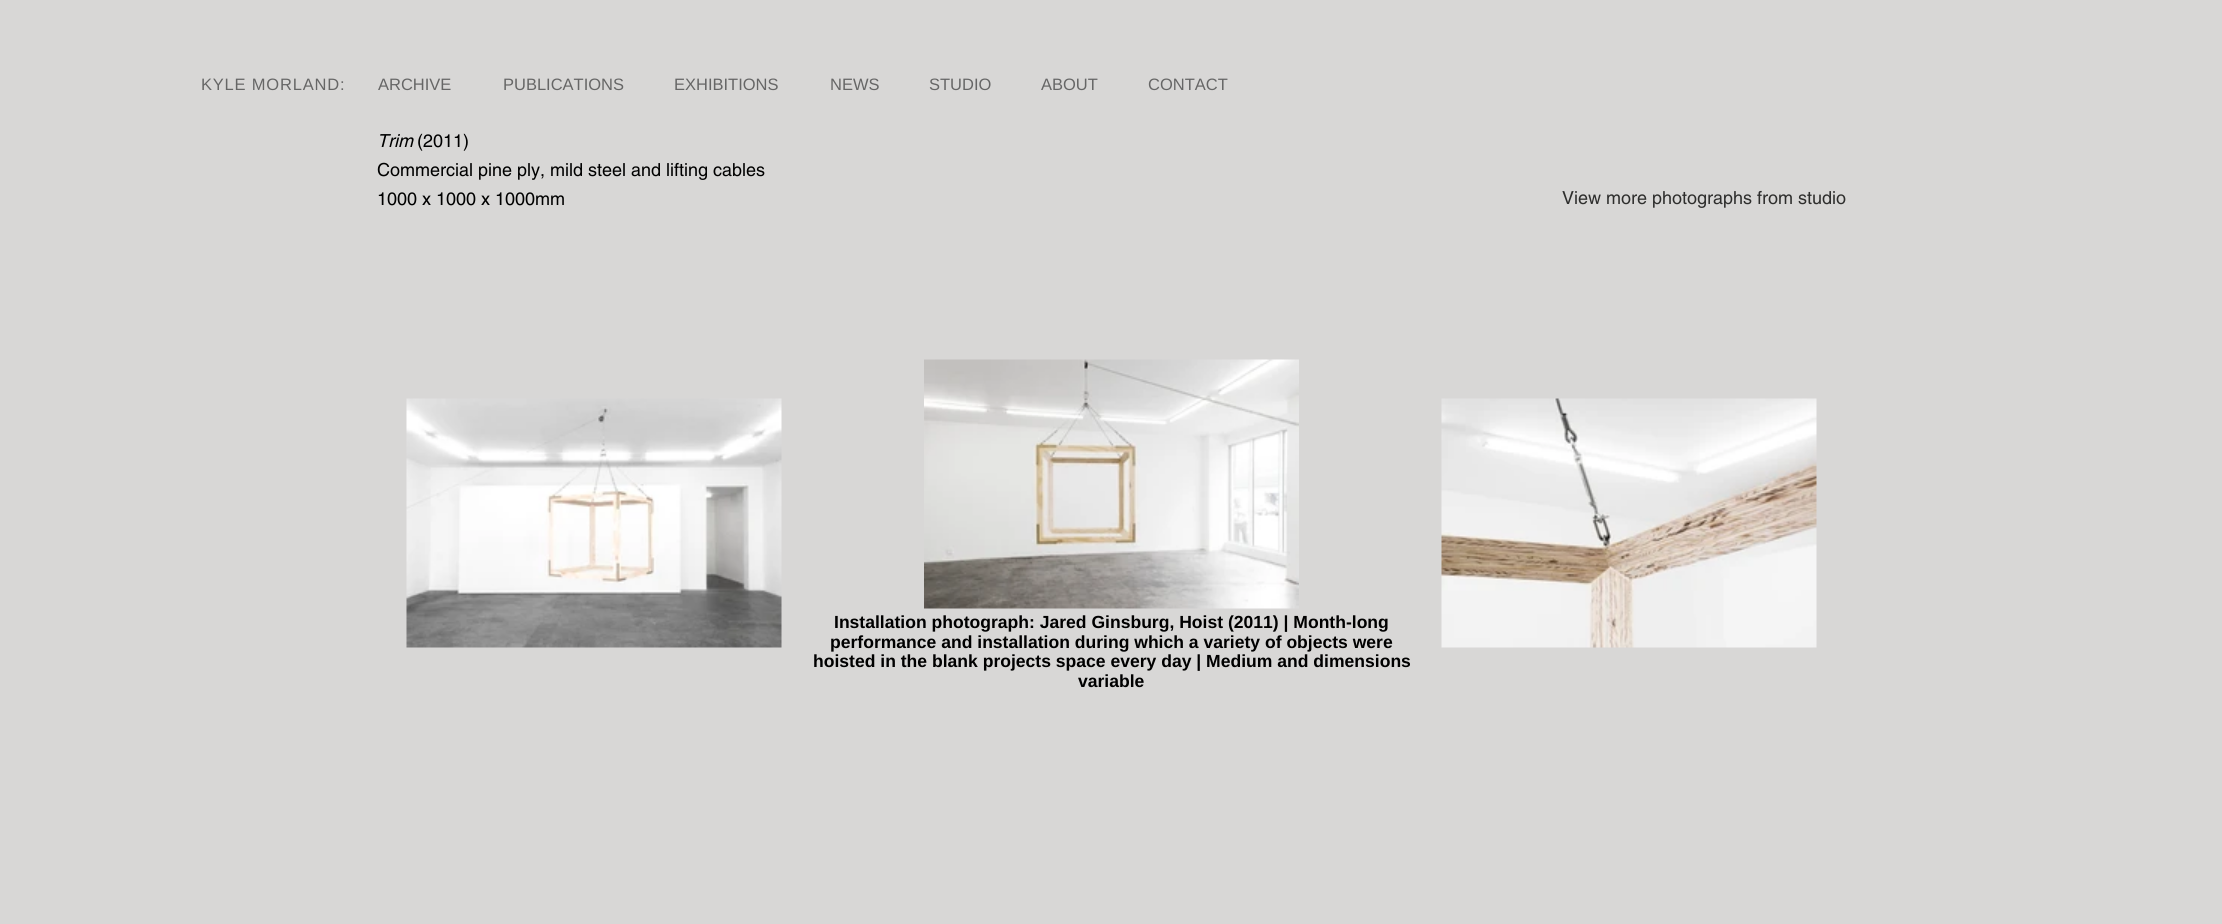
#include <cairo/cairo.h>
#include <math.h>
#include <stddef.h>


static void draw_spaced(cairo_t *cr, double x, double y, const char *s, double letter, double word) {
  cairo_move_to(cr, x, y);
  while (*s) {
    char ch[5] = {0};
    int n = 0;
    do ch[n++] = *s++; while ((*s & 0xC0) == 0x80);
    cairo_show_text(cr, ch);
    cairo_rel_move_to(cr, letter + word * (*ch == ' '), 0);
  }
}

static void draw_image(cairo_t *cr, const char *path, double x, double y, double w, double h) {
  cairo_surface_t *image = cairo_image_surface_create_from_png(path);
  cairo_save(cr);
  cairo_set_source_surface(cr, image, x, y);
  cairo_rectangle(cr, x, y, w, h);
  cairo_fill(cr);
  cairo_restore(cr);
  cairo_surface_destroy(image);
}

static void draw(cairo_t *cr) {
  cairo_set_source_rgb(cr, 216 / 255.0, 215 / 255.0, 214 / 255.0);
  cairo_paint(cr);
  draw_image(cr, "images/1.png", 406, 398, 376, 250);
  draw_image(cr, "images/2.png", 924, 359, 375, 250);
  draw_image(cr, "images/3.png", 1441, 398, 376, 250);
  cairo_select_font_face(cr, "Liberation Sans", CAIRO_FONT_SLANT_NORMAL, CAIRO_FONT_WEIGHT_NORMAL);
  cairo_set_font_size(cr, 16.5);
  cairo_set_source_rgb(cr, 102 / 255.0, 102 / 255.0, 102 / 255.0);
  draw_spaced(cr, 201, 90, "KYLE MORLAND:", 0.8, 0);
  cairo_move_to(cr, 378, 90);
  cairo_show_text(cr, "ARCHIVE");
  cairo_move_to(cr, 503, 90);
  cairo_show_text(cr, "PUBLICATIONS");
  cairo_move_to(cr, 674, 90);
  cairo_show_text(cr, "EXHIBITIONS");
  cairo_move_to(cr, 830, 90);
  cairo_show_text(cr, "NEWS");
  cairo_move_to(cr, 929, 90);
  cairo_show_text(cr, "STUDIO");
  cairo_move_to(cr, 1041, 90);
  cairo_show_text(cr, "ABOUT");
  cairo_move_to(cr, 1148, 90);
  cairo_show_text(cr, "CONTACT");
  cairo_select_font_face(cr, "helvetica", CAIRO_FONT_SLANT_ITALIC, CAIRO_FONT_WEIGHT_NORMAL);
  cairo_set_font_size(cr, 18);
  cairo_set_source_rgb(cr, 0, 0, 0);
  cairo_move_to(cr, 377, 147);
  cairo_show_text(cr, "Trim");
  cairo_select_font_face(cr, "helvetica", CAIRO_FONT_SLANT_NORMAL, CAIRO_FONT_WEIGHT_NORMAL);
  cairo_move_to(cr, 417, 147);
  cairo_show_text(cr, "(2011)");
  cairo_move_to(cr, 377, 176);
  cairo_show_text(cr, "Commercial pine ply, mild steel and lifting cables");
  cairo_move_to(cr, 377, 205);
  cairo_show_text(cr, "1000 x 1000 x 1000mm");
  cairo_set_source_rgb(cr, 46 / 255.0, 46 / 255.0, 45 / 255.0);
  cairo_move_to(cr, 1562, 204);
  cairo_show_text(cr, "View more photographs from studio");
  cairo_select_font_face(cr, "Liberation Sans", CAIRO_FONT_SLANT_NORMAL, CAIRO_FONT_WEIGHT_BOLD);
  cairo_set_font_size(cr, 17.55);
  cairo_set_source_rgb(cr, 0, 0, 0);
  cairo_move_to(cr, 834, 628);
  cairo_show_text(cr, "Installation photograph: Jared Ginsburg, Hoist (2011) | Month-long");
  cairo_move_to(cr, 830, 648);
  cairo_show_text(cr, "performance and installation during which a variety of objects were");
  cairo_move_to(cr, 813, 667);
  cairo_show_text(cr, "hoisted in the blank projects space every day | Medium and dimensions");
  cairo_move_to(cr, 1078, 687);
  cairo_show_text(cr, "variable");
}

int main(void) {
  cairo_surface_t *surface = cairo_image_surface_create(CAIRO_FORMAT_RGB24, 2222, 924);
  cairo_t *cr = cairo_create(surface);
  cairo_font_options_t *options = cairo_font_options_create();
  cairo_font_options_set_hint_metrics(options, CAIRO_HINT_METRICS_OFF);
  cairo_font_options_set_hint_style(options, CAIRO_HINT_STYLE_NONE);
  cairo_set_font_options(cr, options);
  cairo_set_miter_limit(cr, 4);
  draw(cr);
  cairo_surface_write_to_png(surface, "out.png");
  cairo_font_options_destroy(options);
  cairo_destroy(cr);
  cairo_surface_destroy(surface);
  return 0;
}
